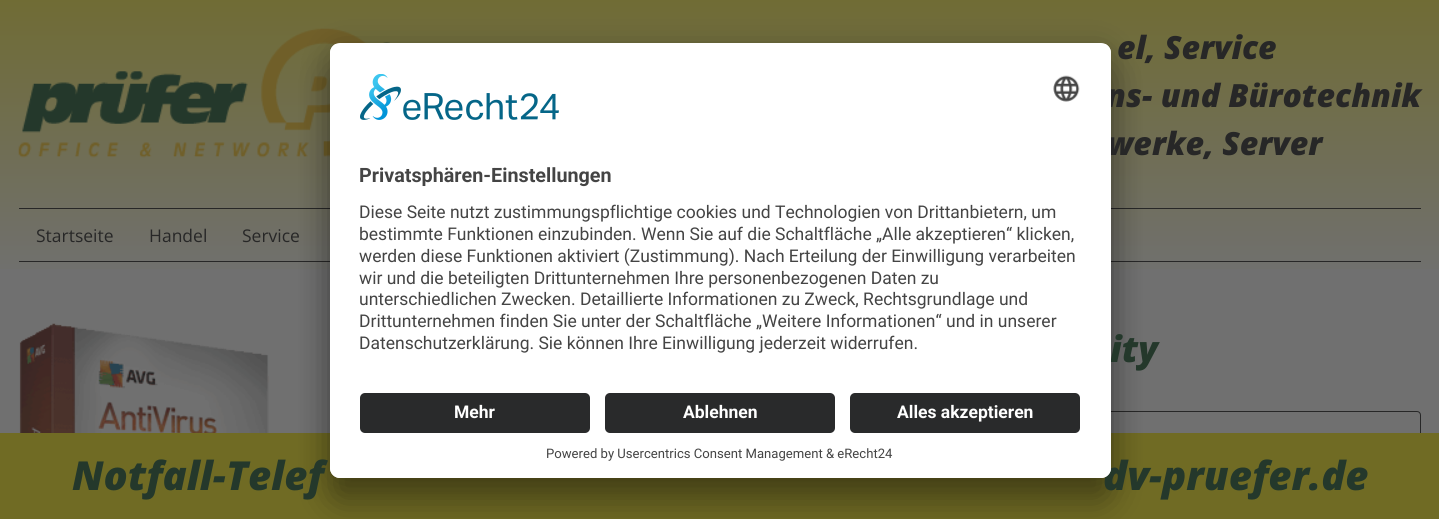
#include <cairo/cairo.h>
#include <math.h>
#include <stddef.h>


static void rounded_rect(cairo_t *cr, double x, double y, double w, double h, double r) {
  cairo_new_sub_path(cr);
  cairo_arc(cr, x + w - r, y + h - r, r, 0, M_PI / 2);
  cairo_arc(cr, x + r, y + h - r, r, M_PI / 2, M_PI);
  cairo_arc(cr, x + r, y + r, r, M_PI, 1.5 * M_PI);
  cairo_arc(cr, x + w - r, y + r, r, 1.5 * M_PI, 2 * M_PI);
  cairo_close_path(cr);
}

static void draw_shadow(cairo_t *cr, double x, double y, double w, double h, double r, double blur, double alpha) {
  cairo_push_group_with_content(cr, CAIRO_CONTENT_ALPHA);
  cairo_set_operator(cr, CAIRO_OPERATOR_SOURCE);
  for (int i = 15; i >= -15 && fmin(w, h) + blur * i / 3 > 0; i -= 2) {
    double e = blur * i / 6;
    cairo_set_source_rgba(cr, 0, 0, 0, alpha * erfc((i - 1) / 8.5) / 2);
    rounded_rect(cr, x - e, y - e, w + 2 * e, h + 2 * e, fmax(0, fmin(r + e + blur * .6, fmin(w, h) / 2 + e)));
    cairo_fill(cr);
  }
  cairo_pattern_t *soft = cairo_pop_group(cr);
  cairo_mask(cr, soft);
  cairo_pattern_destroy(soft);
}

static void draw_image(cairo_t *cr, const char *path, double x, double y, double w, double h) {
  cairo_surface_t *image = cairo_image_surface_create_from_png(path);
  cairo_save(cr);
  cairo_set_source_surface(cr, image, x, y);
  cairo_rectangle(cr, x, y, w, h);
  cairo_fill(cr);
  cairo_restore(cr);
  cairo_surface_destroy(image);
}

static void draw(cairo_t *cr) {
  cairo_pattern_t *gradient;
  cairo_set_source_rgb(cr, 112 / 255.0, 112 / 255.0, 112 / 255.0);
  cairo_paint(cr);
  gradient = cairo_pattern_create_linear(0, 0, 0, 323);
  cairo_pattern_add_color_stop_rgba(gradient, 0, 112 / 255.0, 108 / 255.0, 53 / 255.0, 1);
  cairo_pattern_add_color_stop_rgba(gradient, 0.87, 112 / 255.0, 112 / 255.0, 112 / 255.0, 1);
  cairo_set_source(cr, gradient);
  cairo_pattern_destroy(gradient);
  cairo_rectangle(cr, 0, 0, 1439, 269);
  cairo_fill(cr);
  draw_image(cr, "images/1.png", 18, 28, 372, 130);
  cairo_set_source_rgb(cr, 39 / 255.0, 39 / 255.0, 39 / 255.0);
  cairo_rectangle(cr, 19, 208, 1402, 1);
  cairo_fill(cr);
  cairo_rectangle(cr, 19, 261, 1402, 1);
  cairo_fill(cr);
  draw_image(cr, "images/2.png", 19, 323, 250, 110);
  rounded_rect(cr, 499.5, 411.5, 921, 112, 3.5);
  cairo_set_line_width(cr, 1);
  cairo_stroke(cr);
  cairo_set_source_rgb(cr, 112 / 255.0, 107 / 255.0, 36 / 255.0);
  cairo_rectangle(cr, 0, 433, 1439, 86);
  cairo_fill(cr);
  cairo_set_source_rgb(cr, 0, 0, 0);
  draw_shadow(cr, 330, 68, 781, 435, 10, 17.5, 0.3);
  draw_shadow(cr, 330, 49, 781, 435, 10, 16, 0.22);
  cairo_select_font_face(cr, "Open Sans ExtraBold", CAIRO_FONT_SLANT_ITALIC, CAIRO_FONT_WEIGHT_NORMAL);
  cairo_set_font_size(cr, 32);
  cairo_set_source_rgb(cr, 39 / 255.0, 39 / 255.0, 39 / 255.0);
  cairo_move_to(cr, 1117, 59);
  cairo_show_text(cr, "el, Service");
  cairo_move_to(cr, 1106, 107);
  cairo_show_text(cr, "ns- und Bürotechnik");
  cairo_move_to(cr, 1107, 155);
  cairo_show_text(cr, "werke, Server");
  cairo_select_font_face(cr, "Open Sans", CAIRO_FONT_SLANT_NORMAL, CAIRO_FONT_WEIGHT_NORMAL);
  cairo_set_font_size(cr, 17.5);
  cairo_move_to(cr, 36, 242);
  cairo_show_text(cr, "Startseite");
  cairo_move_to(cr, 149, 242);
  cairo_show_text(cr, "Handel");
  cairo_move_to(cr, 242, 242);
  cairo_show_text(cr, "Service");
  cairo_select_font_face(cr, "Open Sans ExtraBold", CAIRO_FONT_SLANT_ITALIC, CAIRO_FONT_WEIGHT_NORMAL);
  cairo_set_font_size(cr, 36);
  cairo_set_source_rgb(cr, 36 / 255.0, 56 / 255.0, 43 / 255.0);
  cairo_move_to(cr, 1110, 362);
  cairo_show_text(cr, "ity");
  cairo_set_font_size(cr, 40);
  cairo_move_to(cr, 72, 490);
  cairo_show_text(cr, "Notfall-Telef");
  cairo_move_to(cr, 1103, 490);
  cairo_show_text(cr, "dv-pruefer.de");
  cairo_set_source_rgb(cr, 1, 1, 1);
  rounded_rect(cr, 330, 43, 781, 435, 10);
  cairo_fill(cr);
  cairo_save(cr);
  rounded_rect(cr, 330, 43, 781, 435, 10);
  cairo_clip(cr);
  cairo_new_path(cr);
  cairo_move_to(cr, 340, 43);
  cairo_line_to(cr, 1101, 43);
  cairo_curve_to(cr, 1106.5, 43, 1111, 47.5, 1111, 53);
  cairo_line_to(cr, 1111, 383);
  cairo_line_to(cr, 330, 383);
  cairo_line_to(cr, 330, 53);
  cairo_curve_to(cr, 330, 47.5, 334.5, 43, 340, 43);
  cairo_close_path(cr);
  cairo_clip(cr);
  cairo_rectangle(cr, 330, 44, 781, 339);
  cairo_fill(cr);
  cairo_restore(cr);
  draw_image(cr, "images/3.png", 360, 74, 199, 46);
  draw_image(cr, "images/4.png", 1053, 75, 27, 27);
  cairo_select_font_face(cr, "Roboto", CAIRO_FONT_SLANT_NORMAL, CAIRO_FONT_WEIGHT_BOLD);
  cairo_set_font_size(cr, 19.75);
  cairo_set_source_rgb(cr, 68 / 255.0, 68 / 255.0, 68 / 255.0);
  cairo_move_to(cr, 359, 182);
  cairo_show_text(cr, "Privatsphären-Einstellungen");
  cairo_select_font_face(cr, "Roboto", CAIRO_FONT_SLANT_NORMAL, CAIRO_FONT_WEIGHT_NORMAL);
  cairo_set_font_size(cr, 17.5);
  cairo_move_to(cr, 359, 218);
  cairo_show_text(cr, "Diese Seite nutzt zustimmungspflichtige cookies und Technologien von Drittanbietern, um");
  cairo_move_to(cr, 359, 240);
  cairo_show_text(cr, "bestimmte Funktionen einzubinden. Wenn Sie auf die Schaltfläche „Alle akzeptieren“ klicken,");
  cairo_move_to(cr, 359, 262);
  cairo_show_text(cr, "werden diese Funktionen aktiviert (Zustimmung). Nach Erteilung der Einwilligung verarbeiten");
  cairo_move_to(cr, 359, 284);
  cairo_show_text(cr, "wir und die beteiligten Drittunternehmen Ihre personenbezogenen Daten zu");
  cairo_move_to(cr, 359, 305);
  cairo_show_text(cr, "unterschiedlichen Zwecken. Detaillierte Informationen zu Zweck, Rechtsgrundlage und");
  cairo_move_to(cr, 359, 327);
  cairo_show_text(cr, "Drittunternehmen finden Sie unter der Schaltfläche „Weitere Informationen“ und in unserer");
  cairo_move_to(cr, 359, 349);
  cairo_show_text(cr, "Datenschutzerklärung. Sie können Ihre Einwilligung jederzeit widerrufen.");
  cairo_set_source_rgb(cr, 1, 1, 1);
  cairo_new_path(cr);
  cairo_move_to(cr, 330, 383);
  cairo_line_to(cr, 1111, 383);
  cairo_line_to(cr, 1111, 468);
  cairo_curve_to(cr, 1111, 473.5, 1106.5, 478, 1101, 478);
  cairo_line_to(cr, 340, 478);
  cairo_curve_to(cr, 334.5, 478, 330, 473.5, 330, 468);
  cairo_close_path(cr);
  cairo_fill(cr);
  cairo_set_source_rgb(cr, 41 / 255.0, 42 / 255.0, 43 / 255.0);
  rounded_rect(cr, 360, 393, 230, 40, 5);
  cairo_fill(cr);
  cairo_select_font_face(cr, "Roboto", CAIRO_FONT_SLANT_NORMAL, CAIRO_FONT_WEIGHT_BOLD);
  cairo_set_source_rgb(cr, 1, 1, 1);
  cairo_move_to(cr, 454, 418);
  cairo_show_text(cr, "Mehr");
  cairo_set_source_rgb(cr, 41 / 255.0, 42 / 255.0, 43 / 255.0);
  rounded_rect(cr, 605, 393, 230, 40, 5);
  cairo_fill(cr);
  cairo_set_source_rgb(cr, 1, 1, 1);
  cairo_move_to(cr, 683, 418);
  cairo_show_text(cr, "Ablehnen");
  cairo_set_source_rgb(cr, 41 / 255.0, 42 / 255.0, 43 / 255.0);
  rounded_rect(cr, 850, 393, 230, 40, 5);
  cairo_fill(cr);
  cairo_set_source_rgb(cr, 1, 1, 1);
  cairo_move_to(cr, 897, 418);
  cairo_show_text(cr, "Alles akzeptieren");
  cairo_select_font_face(cr, "Roboto", CAIRO_FONT_SLANT_NORMAL, CAIRO_FONT_WEIGHT_NORMAL);
  cairo_set_font_size(cr, 13.1);
  cairo_set_source_rgb(cr, 68 / 255.0, 68 / 255.0, 68 / 255.0);
  cairo_move_to(cr, 546, 458);
  cairo_show_text(cr, "Powered by Usercentrics Consent Management & eRecht24");
}

int main(void) {
  cairo_surface_t *surface = cairo_image_surface_create(CAIRO_FORMAT_RGB24, 1439, 519);
  cairo_t *cr = cairo_create(surface);
  cairo_font_options_t *options = cairo_font_options_create();
  cairo_font_options_set_hint_metrics(options, CAIRO_HINT_METRICS_OFF);
  cairo_font_options_set_hint_style(options, CAIRO_HINT_STYLE_NONE);
  cairo_set_font_options(cr, options);
  cairo_set_miter_limit(cr, 4);
  draw(cr);
  cairo_surface_write_to_png(surface, "out.png");
  cairo_font_options_destroy(options);
  cairo_destroy(cr);
  cairo_surface_destroy(surface);
  return 0;
}
